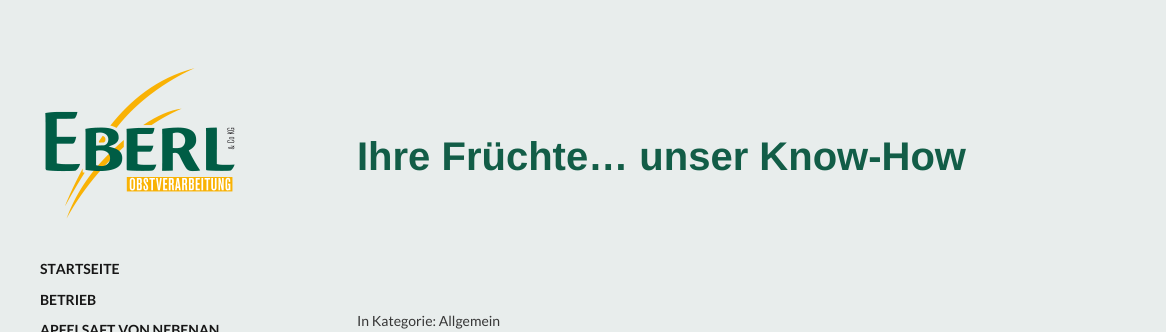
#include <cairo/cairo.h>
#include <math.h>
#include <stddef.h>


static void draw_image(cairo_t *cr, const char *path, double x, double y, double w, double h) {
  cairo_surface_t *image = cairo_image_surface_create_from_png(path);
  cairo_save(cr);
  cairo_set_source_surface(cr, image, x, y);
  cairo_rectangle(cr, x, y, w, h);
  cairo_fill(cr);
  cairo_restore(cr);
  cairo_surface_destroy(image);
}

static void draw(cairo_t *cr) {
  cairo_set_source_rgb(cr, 232 / 255.0, 237 / 255.0, 236 / 255.0);
  cairo_paint(cr);
  draw_image(cr, "images/1.png", 45, 68, 190, 151);
  cairo_select_font_face(cr, "Lato", CAIRO_FONT_SLANT_NORMAL, CAIRO_FONT_WEIGHT_BOLD);
  cairo_set_font_size(cr, 14);
  cairo_set_source_rgb(cr, 22 / 255.0, 22 / 255.0, 22 / 255.0);
  cairo_move_to(cr, 40, 274);
  cairo_show_text(cr, "STARTSEITE");
  cairo_move_to(cr, 40, 305);
  cairo_show_text(cr, "BETRIEB");
  cairo_move_to(cr, 40, 335);
  cairo_show_text(cr, "APFELSAFT VON NEBENAN");
  cairo_select_font_face(cr, "Liberation Sans", CAIRO_FONT_SLANT_NORMAL, CAIRO_FONT_WEIGHT_BOLD);
  cairo_set_font_size(cr, 40);
  cairo_set_source_rgb(cr, 18 / 255.0, 93 / 255.0, 71 / 255.0);
  cairo_move_to(cr, 357, 170);
  cairo_show_text(cr, "Ihre Früchte… unser Know-How");
  cairo_select_font_face(cr, "Lato", CAIRO_FONT_SLANT_NORMAL, CAIRO_FONT_WEIGHT_NORMAL);
  cairo_set_font_size(cr, 14);
  cairo_set_source_rgb(cr, 54 / 255.0, 54 / 255.0, 54 / 255.0);
  cairo_move_to(cr, 357, 326);
  cairo_show_text(cr, "In Kategorie: Allgemein");
}

int main(void) {
  cairo_surface_t *surface = cairo_image_surface_create(CAIRO_FORMAT_RGB24, 1166, 332);
  cairo_t *cr = cairo_create(surface);
  cairo_font_options_t *options = cairo_font_options_create();
  cairo_font_options_set_hint_metrics(options, CAIRO_HINT_METRICS_OFF);
  cairo_font_options_set_hint_style(options, CAIRO_HINT_STYLE_NONE);
  cairo_set_font_options(cr, options);
  cairo_set_miter_limit(cr, 4);
  draw(cr);
  cairo_surface_write_to_png(surface, "out.png");
  cairo_font_options_destroy(options);
  cairo_destroy(cr);
  cairo_surface_destroy(surface);
  return 0;
}
